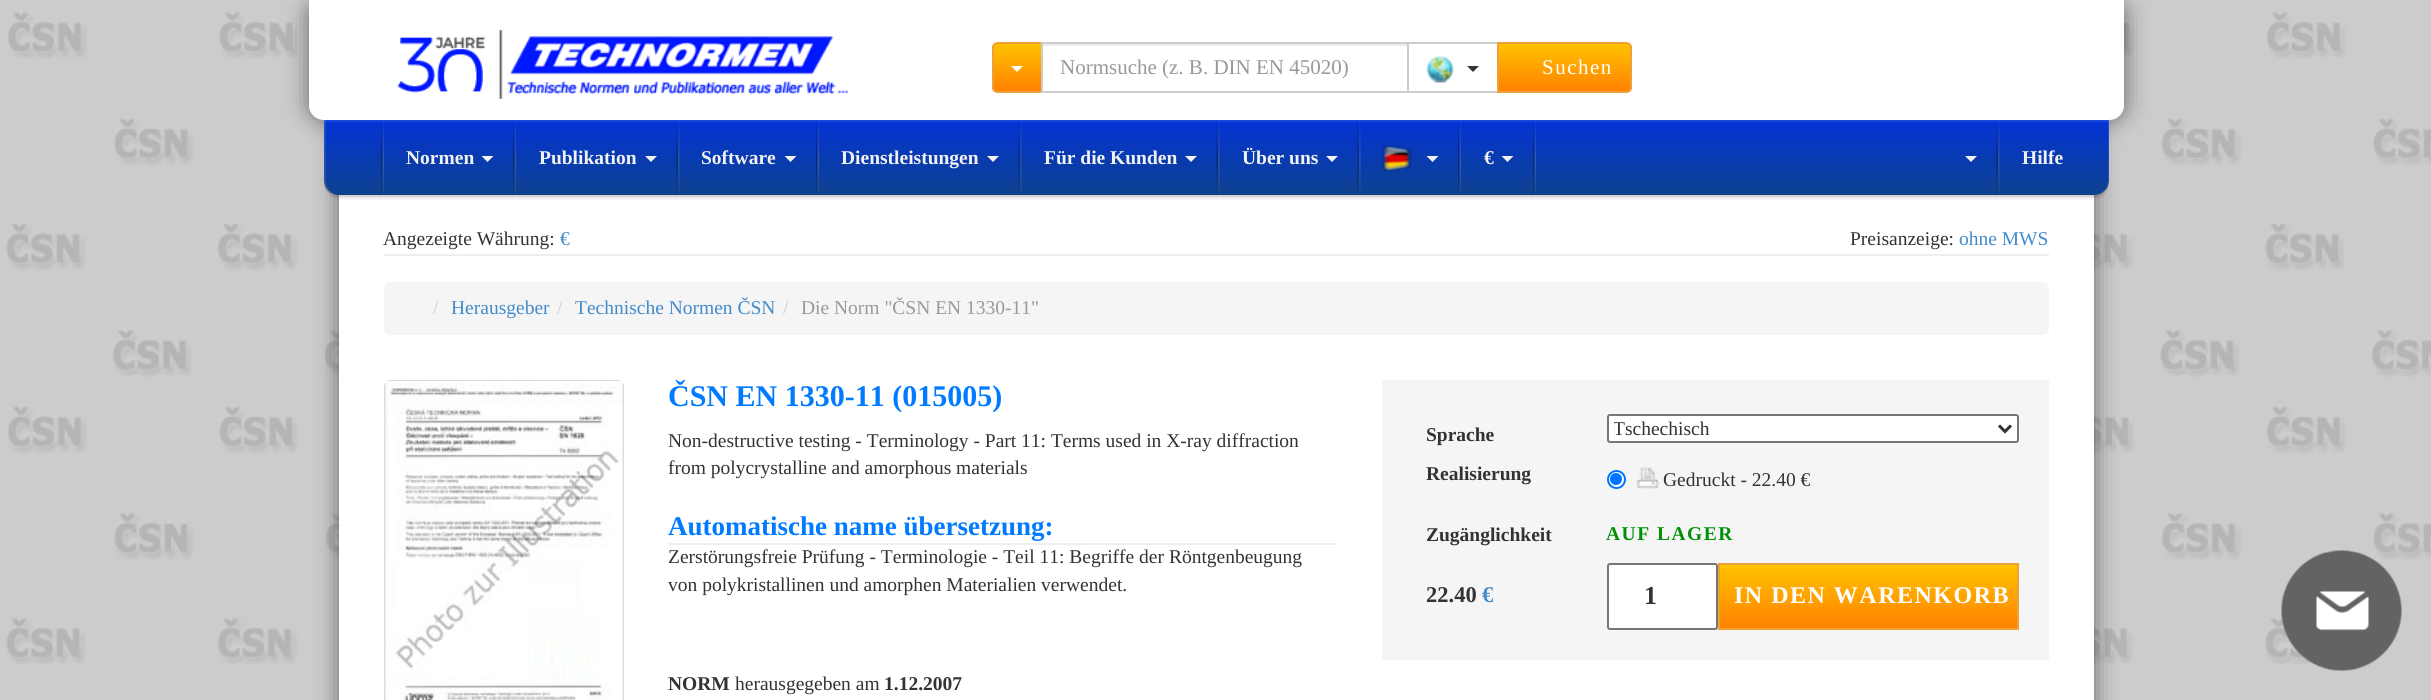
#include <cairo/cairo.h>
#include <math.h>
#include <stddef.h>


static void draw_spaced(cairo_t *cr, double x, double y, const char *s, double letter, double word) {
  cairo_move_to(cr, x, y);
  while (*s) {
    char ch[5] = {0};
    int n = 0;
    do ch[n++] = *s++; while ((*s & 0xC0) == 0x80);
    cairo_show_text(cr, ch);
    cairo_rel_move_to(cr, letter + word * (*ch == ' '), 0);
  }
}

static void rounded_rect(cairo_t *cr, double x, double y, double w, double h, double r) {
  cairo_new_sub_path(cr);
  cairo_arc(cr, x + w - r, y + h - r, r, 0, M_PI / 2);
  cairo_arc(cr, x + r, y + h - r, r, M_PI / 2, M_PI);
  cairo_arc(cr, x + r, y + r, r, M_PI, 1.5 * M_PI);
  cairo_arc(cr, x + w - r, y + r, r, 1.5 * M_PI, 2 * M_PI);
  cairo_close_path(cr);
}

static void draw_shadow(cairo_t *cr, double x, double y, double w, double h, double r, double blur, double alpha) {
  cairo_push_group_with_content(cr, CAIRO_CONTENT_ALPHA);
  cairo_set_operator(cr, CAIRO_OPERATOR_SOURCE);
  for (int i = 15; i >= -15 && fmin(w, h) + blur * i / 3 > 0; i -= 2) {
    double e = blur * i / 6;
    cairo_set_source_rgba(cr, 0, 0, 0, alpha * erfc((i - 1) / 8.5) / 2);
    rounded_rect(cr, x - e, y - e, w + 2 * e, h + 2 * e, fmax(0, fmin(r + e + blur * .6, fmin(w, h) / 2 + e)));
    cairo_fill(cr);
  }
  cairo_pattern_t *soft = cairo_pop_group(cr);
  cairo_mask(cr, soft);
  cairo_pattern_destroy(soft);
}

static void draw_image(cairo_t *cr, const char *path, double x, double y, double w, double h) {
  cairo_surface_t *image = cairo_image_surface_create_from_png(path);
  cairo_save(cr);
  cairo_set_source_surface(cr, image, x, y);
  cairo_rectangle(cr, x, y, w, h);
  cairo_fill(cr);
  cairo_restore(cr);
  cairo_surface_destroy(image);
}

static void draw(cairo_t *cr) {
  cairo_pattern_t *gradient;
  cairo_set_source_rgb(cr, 204 / 255.0, 204 / 255.0, 204 / 255.0);
  cairo_paint(cr);
  draw_image(cr, "images/1.png", 6, 12, 2425, 652);
  cairo_set_source_rgb(cr, 0, 0, 0);
  draw_shadow(cr, 339, 0, 1755, 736, 0, 12, 0.5);
  cairo_set_source_rgb(cr, 1, 1, 1);
  cairo_rectangle(cr, 339, 195, 1755, 505);
  cairo_fill(cr);
  cairo_set_source_rgb(cr, 0, 0, 0);
  draw_shadow(cr, 309, 0, 1815, 120, 15, 12, 0.5);
  cairo_set_source_rgb(cr, 1, 1, 1);
  cairo_new_path(cr);
  cairo_move_to(cr, 309, 0);
  cairo_line_to(cr, 2124, 0);
  cairo_line_to(cr, 2124, 105);
  cairo_curve_to(cr, 2124, 113.5, 2117.5, 120, 2109, 120);
  cairo_line_to(cr, 324, 120);
  cairo_curve_to(cr, 315.5, 120, 309, 113.5, 309, 105);
  cairo_close_path(cr);
  cairo_fill(cr);
  draw_image(cr, "images/2.png", 397, 30, 451, 69);
  cairo_save(cr);
  cairo_new_path(cr);
  cairo_move_to(cr, 998, 42);
  cairo_line_to(cr, 1043, 42);
  cairo_line_to(cr, 1043, 93);
  cairo_line_to(cr, 998, 93);
  cairo_curve_to(cr, 994.5, 93, 992, 90.5, 992, 87);
  cairo_line_to(cr, 992, 48);
  cairo_curve_to(cr, 992, 44.5, 994.5, 42, 998, 42);
  cairo_close_path(cr);
  cairo_clip(cr);
  gradient = cairo_pattern_create_linear(1017, 43, 1017, 92);
  cairo_pattern_add_color_stop_rgba(gradient, 0, 1, 196 / 255.0, 0, 1);
  cairo_pattern_add_color_stop_rgba(gradient, 1, 1, 128 / 255.0, 0, 1);
  cairo_set_source(cr, gradient);
  cairo_pattern_destroy(gradient);
  cairo_rectangle(cr, 992, 44, 49, 48);
  cairo_fill(cr);
  cairo_restore(cr);
  cairo_new_path(cr);
  cairo_move_to(cr, 998, 43);
  cairo_line_to(cr, 1042, 43);
  cairo_line_to(cr, 1042, 92);
  cairo_line_to(cr, 998, 92);
  cairo_curve_to(cr, 995, 92, 993, 90, 993, 87);
  cairo_line_to(cr, 993, 48);
  cairo_curve_to(cr, 993, 45, 995, 43, 998, 43);
  cairo_close_path(cr);
  cairo_set_source_rgb(cr, 238 / 255.0, 162 / 255.0, 54 / 255.0);
  cairo_stroke(cr);
  cairo_set_source_rgb(cr, 1, 1, 1);
  cairo_new_path(cr);
  cairo_move_to(cr, 1011, 66);
  cairo_line_to(cr, 1023, 66);
  cairo_line_to(cr, 1017, 72);
  cairo_close_path(cr);
  cairo_fill(cr);
  cairo_set_source_rgb(cr, 236 / 255.0, 236 / 255.0, 236 / 255.0);
  cairo_rectangle(cr, 1043, 44, 364, 2);
  cairo_fill(cr);
  cairo_rectangle(cr, 1408, 43, 90, 49);
  cairo_set_source_rgb(cr, 204 / 255.0, 204 / 255.0, 204 / 255.0);
  cairo_stroke(cr);
  cairo_rectangle(cr, 1042, 43, 366, 49);
  cairo_stroke(cr);
  draw_image(cr, "images/3.png", 1426, 55, 28, 28);
  cairo_set_source_rgb(cr, 51 / 255.0, 51 / 255.0, 51 / 255.0);
  cairo_new_path(cr);
  cairo_move_to(cr, 1467, 66);
  cairo_line_to(cr, 1479, 66);
  cairo_line_to(cr, 1473, 72);
  cairo_close_path(cr);
  cairo_fill(cr);
  cairo_save(cr);
  cairo_new_path(cr);
  cairo_move_to(cr, 1497, 42);
  cairo_line_to(cr, 1626, 42);
  cairo_curve_to(cr, 1629.5, 42, 1632, 44.5, 1632, 48);
  cairo_line_to(cr, 1632, 87);
  cairo_curve_to(cr, 1632, 90.5, 1629.5, 93, 1626, 93);
  cairo_line_to(cr, 1497, 93);
  cairo_close_path(cr);
  cairo_clip(cr);
  gradient = cairo_pattern_create_linear(1565, 43, 1565, 92);
  cairo_pattern_add_color_stop_rgba(gradient, 0, 1, 196 / 255.0, 0, 1);
  cairo_pattern_add_color_stop_rgba(gradient, 1, 1, 128 / 255.0, 0, 1);
  cairo_set_source(cr, gradient);
  cairo_pattern_destroy(gradient);
  cairo_rectangle(cr, 1499, 44, 133, 48);
  cairo_fill(cr);
  cairo_restore(cr);
  cairo_new_path(cr);
  cairo_move_to(cr, 1498, 43);
  cairo_line_to(cr, 1626, 43);
  cairo_curve_to(cr, 1629, 43, 1631, 45, 1631, 48);
  cairo_line_to(cr, 1631, 87);
  cairo_curve_to(cr, 1631, 90, 1629, 92, 1626, 92);
  cairo_line_to(cr, 1498, 92);
  cairo_close_path(cr);
  cairo_set_source_rgb(cr, 238 / 255.0, 162 / 255.0, 54 / 255.0);
  cairo_stroke(cr);
  cairo_set_source_rgba(cr, 0, 0, 0, 0.08);
  cairo_new_path(cr);
  cairo_move_to(cr, 324, 180);
  cairo_line_to(cr, 324, 182);
  cairo_curve_to(cr, 324, 190, 331, 197, 339, 197);
  cairo_line_to(cr, 2094, 197);
  cairo_curve_to(cr, 2102, 197, 2109, 190, 2109, 182);
  cairo_line_to(cr, 2109, 180);
  cairo_curve_to(cr, 2109, 188, 2102, 195, 2094, 195);
  cairo_line_to(cr, 339, 195);
  cairo_curve_to(cr, 331, 195, 324, 188, 324, 180);
  cairo_close_path(cr);
  cairo_fill(cr);
  cairo_set_source_rgba(cr, 0, 0, 0, 0.06);
  cairo_new_path(cr);
  cairo_move_to(cr, 324, 180);
  cairo_line_to(cr, 324, 183);
  cairo_curve_to(cr, 324, 191, 331, 198, 339, 198);
  cairo_line_to(cr, 2094, 198);
  cairo_curve_to(cr, 2102, 198, 2109, 191, 2109, 183);
  cairo_line_to(cr, 2109, 180);
  cairo_curve_to(cr, 2109, 188, 2102, 195, 2094, 195);
  cairo_line_to(cr, 339, 195);
  cairo_curve_to(cr, 331, 195, 324, 188, 324, 180);
  cairo_close_path(cr);
  cairo_fill(cr);
  cairo_set_source_rgba(cr, 0, 0, 0, 0.04);
  cairo_new_path(cr);
  cairo_move_to(cr, 324, 180);
  cairo_line_to(cr, 324, 185);
  cairo_curve_to(cr, 324, 193, 331, 200, 339, 200);
  cairo_line_to(cr, 2094, 200);
  cairo_curve_to(cr, 2102, 200, 2109, 193, 2109, 185);
  cairo_line_to(cr, 2109, 180);
  cairo_curve_to(cr, 2109, 188, 2102, 195, 2094, 195);
  cairo_line_to(cr, 339, 195);
  cairo_curve_to(cr, 331, 195, 324, 188, 324, 180);
  cairo_close_path(cr);
  cairo_fill(cr);
  gradient = cairo_pattern_create_linear(1217, 120, 1217, 195);
  cairo_pattern_add_color_stop_rgba(gradient, 0, 4 / 255.0, 51 / 255.0, 214 / 255.0, 1);
  cairo_pattern_add_color_stop_rgba(gradient, 1, 13 / 255.0, 66 / 255.0, 142 / 255.0, 1);
  cairo_set_source(cr, gradient);
  cairo_pattern_destroy(gradient);
  cairo_new_path(cr);
  cairo_move_to(cr, 324, 120);
  cairo_line_to(cr, 2109, 120);
  cairo_line_to(cr, 2109, 180);
  cairo_curve_to(cr, 2109, 188.5, 2102.5, 195, 2094, 195);
  cairo_line_to(cr, 339, 195);
  cairo_curve_to(cr, 330.5, 195, 324, 188.5, 324, 180);
  cairo_close_path(cr);
  cairo_fill(cr);
  cairo_set_source_rgba(cr, 0, 0, 0, 0.1);
  cairo_new_path(cr);
  cairo_move_to(cr, 324, 178);
  cairo_line_to(cr, 324, 180);
  cairo_curve_to(cr, 324, 188, 331, 195, 339, 195);
  cairo_line_to(cr, 2094, 195);
  cairo_curve_to(cr, 2102, 195, 2109, 188, 2109, 180);
  cairo_line_to(cr, 2109, 178);
  cairo_curve_to(cr, 2109, 187, 2102, 194, 2094, 194);
  cairo_line_to(cr, 339, 194);
  cairo_curve_to(cr, 331, 194, 324, 187, 324, 178);
  cairo_close_path(cr);
  cairo_fill(cr);
  cairo_set_source_rgba(cr, 1, 1, 1, 0.1);
  cairo_new_path(cr);
  cairo_move_to(cr, 2092, 195);
  cairo_curve_to(cr, 2113, 195, 2109, 175, 2109, 160);
  cairo_line_to(cr, 2109, 120);
  cairo_line_to(cr, 2108, 120);
  cairo_line_to(cr, 2108, 180);
  cairo_curve_to(cr, 2108, 188, 2101, 195, 2092, 195);
  cairo_close_path(cr);
  cairo_fill(cr);
  cairo_new_path(cr);
  cairo_move_to(cr, 324, 120);
  cairo_line_to(cr, 324, 160);
  cairo_curve_to(cr, 324, 174, 320, 195, 340, 195);
  cairo_curve_to(cr, 332, 195, 326, 188, 326, 180);
  cairo_line_to(cr, 326, 120);
  cairo_close_path(cr);
  cairo_fill(cr);
  cairo_rectangle(cr, 324, 120, 1785, 2);
  cairo_fill(cr);
  draw_image(cr, "images/4.png", 381, 120, 3, 75);
  draw_image(cr, "images/4.png", 513, 120, 3, 75);
  cairo_set_source_rgb(cr, 242 / 255.0, 242 / 255.0, 242 / 255.0);
  cairo_new_path(cr);
  cairo_move_to(cr, 481.5, 156);
  cairo_line_to(cr, 493.5, 156);
  cairo_line_to(cr, 487.5, 162);
  cairo_close_path(cr);
  cairo_fill(cr);
  draw_image(cr, "images/5.png", 676, 120, 4, 75);
  cairo_new_path(cr);
  cairo_move_to(cr, 645, 156);
  cairo_line_to(cr, 657, 156);
  cairo_line_to(cr, 651, 162);
  cairo_close_path(cr);
  cairo_fill(cr);
  draw_image(cr, "images/6.png", 816, 120, 3, 75);
  cairo_new_path(cr);
  cairo_move_to(cr, 784.5, 156);
  cairo_line_to(cr, 796.5, 156);
  cairo_line_to(cr, 790.5, 162);
  cairo_close_path(cr);
  cairo_fill(cr);
  draw_image(cr, "images/5.png", 1018, 120, 4, 75);
  cairo_new_path(cr);
  cairo_move_to(cr, 987, 156);
  cairo_line_to(cr, 999, 156);
  cairo_line_to(cr, 993, 162);
  cairo_close_path(cr);
  cairo_fill(cr);
  draw_image(cr, "images/5.png", 1216, 120, 4, 75);
  cairo_new_path(cr);
  cairo_move_to(cr, 1185, 156);
  cairo_line_to(cr, 1197, 156);
  cairo_line_to(cr, 1191, 162);
  cairo_close_path(cr);
  cairo_fill(cr);
  draw_image(cr, "images/5.png", 1357, 120, 4, 75);
  cairo_new_path(cr);
  cairo_move_to(cr, 1326, 156);
  cairo_line_to(cr, 1338, 156);
  cairo_line_to(cr, 1332, 162);
  cairo_close_path(cr);
  cairo_fill(cr);
  draw_image(cr, "images/6.png", 1458, 120, 3, 75);
  draw_image(cr, "images/7.png", 1383, 145, 29, 28);
  cairo_new_path(cr);
  cairo_move_to(cr, 1426.5, 156);
  cairo_line_to(cr, 1438.5, 156);
  cairo_line_to(cr, 1432.5, 162);
  cairo_close_path(cr);
  cairo_fill(cr);
  draw_image(cr, "images/6.png", 1533, 120, 3, 75);
  cairo_new_path(cr);
  cairo_move_to(cr, 1501.5, 156);
  cairo_line_to(cr, 1513.5, 156);
  cairo_line_to(cr, 1507.5, 162);
  cairo_close_path(cr);
  cairo_fill(cr);
  draw_image(cr, "images/5.png", 1996, 120, 4, 75);
  cairo_new_path(cr);
  cairo_move_to(cr, 1965, 156);
  cairo_line_to(cr, 1977, 156);
  cairo_line_to(cr, 1971, 162);
  cairo_close_path(cr);
  cairo_fill(cr);
  cairo_set_source_rgb(cr, 238 / 255.0, 238 / 255.0, 238 / 255.0);
  cairo_rectangle(cr, 384, 254, 1665, 2);
  cairo_fill(cr);
  cairo_set_source_rgb(cr, 245 / 255.0, 245 / 255.0, 245 / 255.0);
  rounded_rect(cr, 384, 282, 1665, 53, 6);
  cairo_fill(cr);
  rounded_rect(cr, 385, 381, 238, 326, 5);
  cairo_set_source_rgb(cr, 221 / 255.0, 221 / 255.0, 221 / 255.0);
  cairo_stroke(cr);
  draw_image(cr, "images/8.png", 385, 381, 238, 319);
  cairo_set_source_rgb(cr, 238 / 255.0, 238 / 255.0, 238 / 255.0);
  cairo_rectangle(cr, 669, 543, 668, 2);
  cairo_fill(cr);
  cairo_set_source_rgb(cr, 245 / 255.0, 245 / 255.0, 245 / 255.0);
  cairo_rectangle(cr, 1382, 380, 667, 280);
  cairo_fill(cr);
  cairo_set_source_rgb(cr, 1, 1, 1);
  rounded_rect(cr, 1608, 415, 410, 27, 2);
  cairo_fill_preserve(cr);
  cairo_set_source_rgb(cr, 118 / 255.0, 118 / 255.0, 118 / 255.0);
  cairo_stroke(cr);
  cairo_new_path(cr);
  cairo_move_to(cr, 1999, 425.5);
  cairo_line_to(cr, 2005, 431.5);
  cairo_line_to(cr, 2011, 425.5);
  cairo_set_source_rgb(cr, 51 / 255.0, 51 / 255.0, 51 / 255.0);
  cairo_set_line_width(cr, 3);
  cairo_stroke(cr);
  cairo_set_source_rgb(cr, 1, 1, 1);
  cairo_arc(cr, 1616.5, 479.5, 8.5, 0, 2 * M_PI);
  cairo_fill_preserve(cr);
  cairo_set_source_rgb(cr, 0, 117 / 255.0, 1);
  cairo_set_line_width(cr, 2);
  cairo_stroke(cr);
  cairo_arc(cr, 1616, 479, 6, 0, 2 * M_PI);
  cairo_fill(cr);
  draw_image(cr, "images/9.png", 1636, 467, 23, 22);
  cairo_set_source_rgb(cr, 1, 1, 1);
  rounded_rect(cr, 1608, 564, 109, 65, 2);
  cairo_fill_preserve(cr);
  cairo_set_source_rgb(cr, 118 / 255.0, 118 / 255.0, 118 / 255.0);
  cairo_stroke(cr);
  gradient = cairo_pattern_create_linear(1868, 564, 1868, 629);
  cairo_pattern_add_color_stop_rgba(gradient, 0, 1, 196 / 255.0, 0, 1);
  cairo_pattern_add_color_stop_rgba(gradient, 1, 1, 128 / 255.0, 0, 1);
  cairo_set_source(cr, gradient);
  cairo_pattern_destroy(gradient);
  cairo_rectangle(cr, 1720, 565, 297, 63);
  cairo_fill(cr);
  cairo_rectangle(cr, 1719, 564, 299, 65);
  cairo_set_source_rgb(cr, 238 / 255.0, 162 / 255.0, 54 / 255.0);
  cairo_stroke(cr);
  draw_image(cr, "images/10.png", 2281, 550, 121, 121);
  cairo_select_font_face(cr, "Liberation Serif", CAIRO_FONT_SLANT_NORMAL, CAIRO_FONT_WEIGHT_NORMAL);
  cairo_set_font_size(cr, 21);
  cairo_set_source_rgb(cr, 153 / 255.0, 153 / 255.0, 153 / 255.0);
  cairo_move_to(cr, 1060, 74);
  cairo_show_text(cr, "Normsuche (z. B. DIN EN 45020)");
  cairo_set_source_rgb(cr, 1, 1, 1);
  draw_spaced(cr, 1542, 74, "Suchen", 1.5, 0);
  cairo_select_font_face(cr, "Liberation Serif", CAIRO_FONT_SLANT_NORMAL, CAIRO_FONT_WEIGHT_BOLD);
  cairo_set_font_size(cr, 19.5);
  cairo_set_source_rgb(cr, 242 / 255.0, 242 / 255.0, 242 / 255.0);
  cairo_move_to(cr, 406, 164);
  cairo_show_text(cr, "Normen");
  cairo_move_to(cr, 539, 164);
  cairo_show_text(cr, "Publikation");
  cairo_move_to(cr, 701, 164);
  cairo_show_text(cr, "Software");
  cairo_move_to(cr, 841, 164);
  cairo_show_text(cr, "Dienstleistungen");
  cairo_move_to(cr, 1044, 164);
  cairo_show_text(cr, "Für die Kunden");
  cairo_move_to(cr, 1242, 164);
  cairo_show_text(cr, "Über uns");
  cairo_move_to(cr, 1484, 164);
  cairo_show_text(cr, "€");
  cairo_move_to(cr, 2022, 164);
  cairo_show_text(cr, "Hilfe");
  cairo_select_font_face(cr, "Liberation Serif", CAIRO_FONT_SLANT_NORMAL, CAIRO_FONT_WEIGHT_NORMAL);
  cairo_set_source_rgb(cr, 51 / 255.0, 51 / 255.0, 51 / 255.0);
  cairo_move_to(cr, 383, 245);
  cairo_show_text(cr, "Angezeigte Währung:");
  cairo_set_source_rgb(cr, 66 / 255.0, 139 / 255.0, 202 / 255.0);
  cairo_move_to(cr, 560, 245);
  cairo_show_text(cr, "€");
  cairo_set_source_rgb(cr, 51 / 255.0, 51 / 255.0, 51 / 255.0);
  cairo_move_to(cr, 1850, 245);
  cairo_show_text(cr, "Preisanzeige:");
  cairo_set_source_rgb(cr, 66 / 255.0, 139 / 255.0, 202 / 255.0);
  cairo_move_to(cr, 1959, 245);
  cairo_show_text(cr, "ohne MWS");
  cairo_set_source_rgb(cr, 204 / 255.0, 204 / 255.0, 204 / 255.0);
  cairo_move_to(cr, 433, 314);
  cairo_show_text(cr, "/");
  cairo_set_source_rgb(cr, 66 / 255.0, 139 / 255.0, 202 / 255.0);
  cairo_move_to(cr, 451, 314);
  cairo_show_text(cr, "Herausgeber");
  cairo_set_source_rgb(cr, 204 / 255.0, 204 / 255.0, 204 / 255.0);
  cairo_move_to(cr, 557, 314);
  cairo_show_text(cr, "/");
  cairo_set_source_rgb(cr, 66 / 255.0, 139 / 255.0, 202 / 255.0);
  cairo_move_to(cr, 575, 314);
  cairo_show_text(cr, "Technische Normen ČSN");
  cairo_set_source_rgb(cr, 204 / 255.0, 204 / 255.0, 204 / 255.0);
  cairo_move_to(cr, 783, 314);
  cairo_show_text(cr, "/");
  cairo_set_source_rgb(cr, 153 / 255.0, 153 / 255.0, 153 / 255.0);
  cairo_move_to(cr, 801, 314);
  cairo_show_text(cr, "Die Norm \"ČSN EN 1330-11\"");
  cairo_select_font_face(cr, "Liberation Serif", CAIRO_FONT_SLANT_NORMAL, CAIRO_FONT_WEIGHT_BOLD);
  cairo_set_font_size(cr, 30);
  cairo_set_source_rgb(cr, 0, 122 / 255.0, 1);
  cairo_move_to(cr, 668, 406);
  cairo_show_text(cr, "ČSN EN 1330-11 (015005)");
  cairo_select_font_face(cr, "Liberation Serif", CAIRO_FONT_SLANT_NORMAL, CAIRO_FONT_WEIGHT_NORMAL);
  cairo_set_font_size(cr, 19.5);
  cairo_set_source_rgb(cr, 51 / 255.0, 51 / 255.0, 51 / 255.0);
  cairo_move_to(cr, 668, 447);
  cairo_show_text(cr, "Non-destructive testing - Terminology - Part 11: Terms used in X-ray diffraction");
  cairo_move_to(cr, 668, 474);
  cairo_show_text(cr, "from polycrystalline and amorphous materials");
  cairo_select_font_face(cr, "Liberation Serif", CAIRO_FONT_SLANT_NORMAL, CAIRO_FONT_WEIGHT_BOLD);
  cairo_set_font_size(cr, 27);
  cairo_set_source_rgb(cr, 0, 122 / 255.0, 1);
  cairo_move_to(cr, 668, 535);
  cairo_show_text(cr, "Automatische name übersetzung:");
  cairo_select_font_face(cr, "Liberation Serif", CAIRO_FONT_SLANT_NORMAL, CAIRO_FONT_WEIGHT_NORMAL);
  cairo_set_font_size(cr, 19.5);
  cairo_set_source_rgb(cr, 51 / 255.0, 51 / 255.0, 51 / 255.0);
  cairo_move_to(cr, 668, 563);
  cairo_show_text(cr, "Zerstörungsfreie Prüfung - Terminologie - Teil 11: Begriffe der Röntgenbeugung");
  cairo_move_to(cr, 668, 591);
  cairo_show_text(cr, "von polykristallinen und amorphen Materialien verwendet.");
  cairo_select_font_face(cr, "Liberation Serif", CAIRO_FONT_SLANT_NORMAL, CAIRO_FONT_WEIGHT_BOLD);
  cairo_move_to(cr, 668, 690);
  cairo_show_text(cr, "NORM");
  cairo_select_font_face(cr, "Liberation Serif", CAIRO_FONT_SLANT_NORMAL, CAIRO_FONT_WEIGHT_NORMAL);
  cairo_move_to(cr, 735, 690);
  cairo_show_text(cr, "herausgegeben am");
  cairo_select_font_face(cr, "Liberation Serif", CAIRO_FONT_SLANT_NORMAL, CAIRO_FONT_WEIGHT_BOLD);
  cairo_move_to(cr, 884, 690);
  cairo_show_text(cr, "1.12.2007");
  cairo_move_to(cr, 1426, 441);
  cairo_show_text(cr, "Sprache");
  cairo_save(cr);
  cairo_rectangle(cr, 1614, 416, 380, 25);
  cairo_clip(cr);
  cairo_select_font_face(cr, "Liberation Serif", CAIRO_FONT_SLANT_NORMAL, CAIRO_FONT_WEIGHT_NORMAL);
  cairo_move_to(cr, 1613, 435);
  cairo_show_text(cr, "Tschechisch");
  cairo_restore(cr);
  cairo_move_to(cr, 1426, 480);
  cairo_show_text(cr, "Realisierung");
  cairo_select_font_face(cr, "Liberation Serif", CAIRO_FONT_SLANT_NORMAL, CAIRO_FONT_WEIGHT_NORMAL);
  cairo_move_to(cr, 1663, 486);
  cairo_show_text(cr, "Gedruckt - 22.40 €");
  cairo_select_font_face(cr, "Liberation Serif", CAIRO_FONT_SLANT_NORMAL, CAIRO_FONT_WEIGHT_BOLD);
  cairo_move_to(cr, 1426, 541);
  cairo_show_text(cr, "Zugänglichkeit");
  cairo_set_source_rgb(cr, 0, 145 / 255.0, 6 / 255.0);
  draw_spaced(cr, 1606, 540, "AUF LAGER", 1.5, 0);
  cairo_set_font_size(cr, 22.5);
  cairo_set_source_rgb(cr, 51 / 255.0, 51 / 255.0, 51 / 255.0);
  cairo_move_to(cr, 1426, 602);
  cairo_show_text(cr, "22.40");
  cairo_set_source_rgb(cr, 66 / 255.0, 139 / 255.0, 202 / 255.0);
  cairo_move_to(cr, 1482, 602);
  cairo_show_text(cr, "€");
  cairo_set_font_size(cr, 26);
  cairo_set_source_rgb(cr, 51 / 255.0, 51 / 255.0, 51 / 255.0);
  cairo_move_to(cr, 1644, 604);
  cairo_show_text(cr, "1");
  cairo_set_font_size(cr, 24);
  cairo_set_source_rgb(cr, 1, 1, 1);
  draw_spaced(cr, 1734, 603, "IN DEN WARENKORB", 1.5, 0);
}

int main(void) {
  cairo_surface_t *surface = cairo_image_surface_create(CAIRO_FORMAT_RGB24, 2431, 700);
  cairo_t *cr = cairo_create(surface);
  cairo_font_options_t *options = cairo_font_options_create();
  cairo_font_options_set_hint_metrics(options, CAIRO_HINT_METRICS_OFF);
  cairo_font_options_set_hint_style(options, CAIRO_HINT_STYLE_NONE);
  cairo_set_font_options(cr, options);
  cairo_set_miter_limit(cr, 4);
  draw(cr);
  cairo_surface_write_to_png(surface, "out.png");
  cairo_font_options_destroy(options);
  cairo_destroy(cr);
  cairo_surface_destroy(surface);
  return 0;
}
